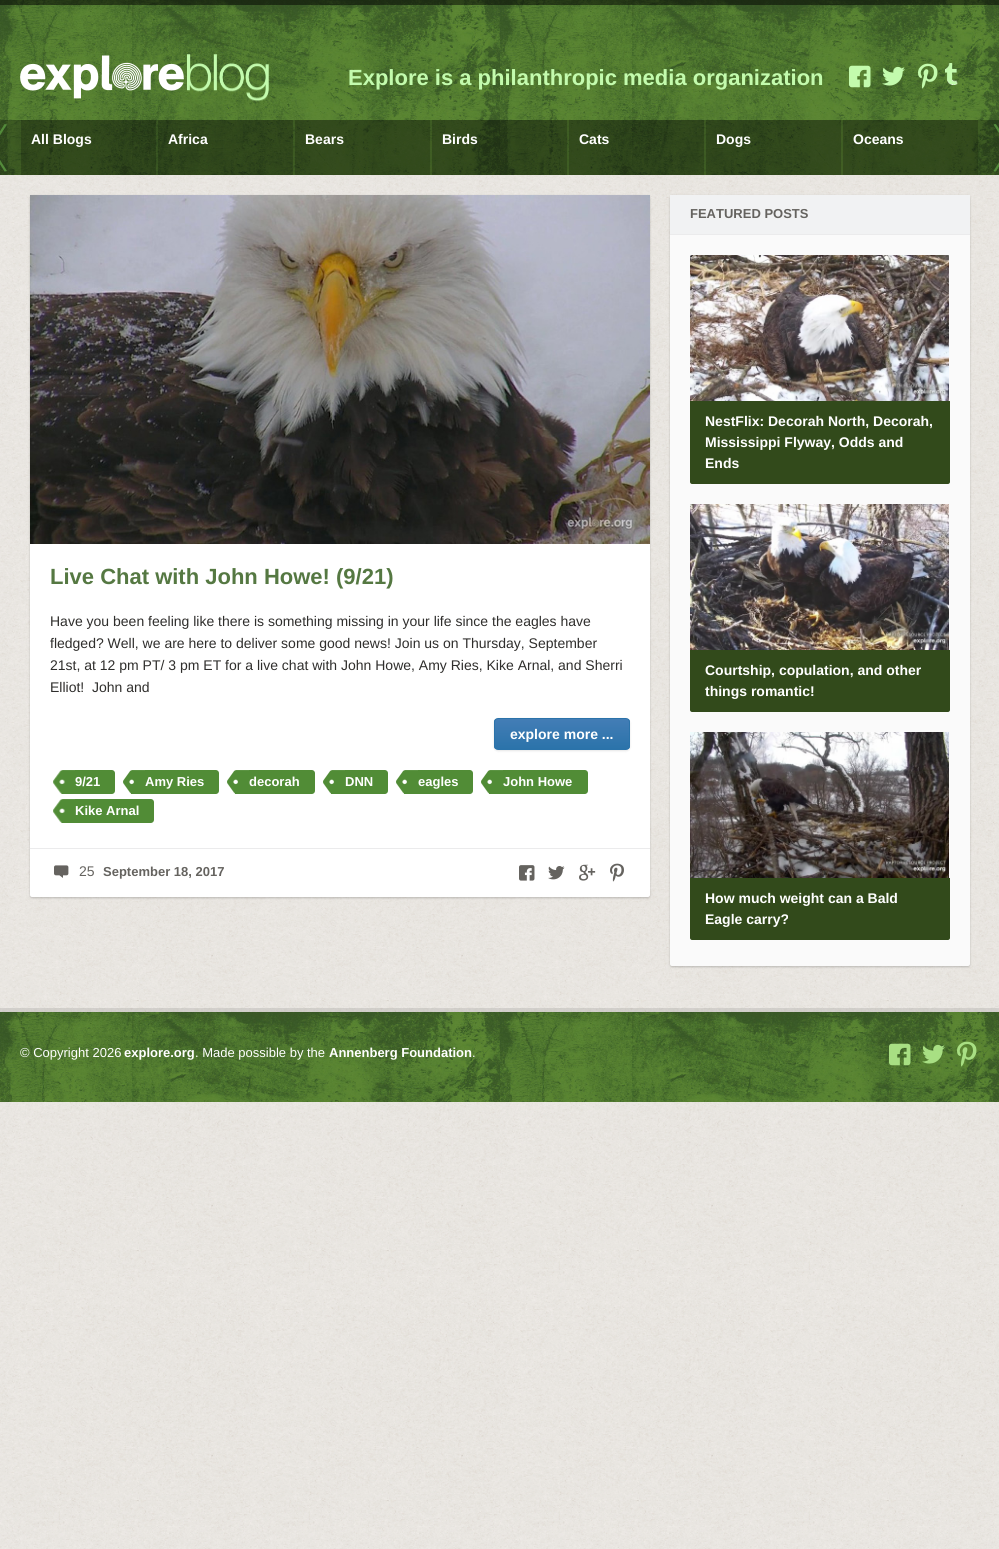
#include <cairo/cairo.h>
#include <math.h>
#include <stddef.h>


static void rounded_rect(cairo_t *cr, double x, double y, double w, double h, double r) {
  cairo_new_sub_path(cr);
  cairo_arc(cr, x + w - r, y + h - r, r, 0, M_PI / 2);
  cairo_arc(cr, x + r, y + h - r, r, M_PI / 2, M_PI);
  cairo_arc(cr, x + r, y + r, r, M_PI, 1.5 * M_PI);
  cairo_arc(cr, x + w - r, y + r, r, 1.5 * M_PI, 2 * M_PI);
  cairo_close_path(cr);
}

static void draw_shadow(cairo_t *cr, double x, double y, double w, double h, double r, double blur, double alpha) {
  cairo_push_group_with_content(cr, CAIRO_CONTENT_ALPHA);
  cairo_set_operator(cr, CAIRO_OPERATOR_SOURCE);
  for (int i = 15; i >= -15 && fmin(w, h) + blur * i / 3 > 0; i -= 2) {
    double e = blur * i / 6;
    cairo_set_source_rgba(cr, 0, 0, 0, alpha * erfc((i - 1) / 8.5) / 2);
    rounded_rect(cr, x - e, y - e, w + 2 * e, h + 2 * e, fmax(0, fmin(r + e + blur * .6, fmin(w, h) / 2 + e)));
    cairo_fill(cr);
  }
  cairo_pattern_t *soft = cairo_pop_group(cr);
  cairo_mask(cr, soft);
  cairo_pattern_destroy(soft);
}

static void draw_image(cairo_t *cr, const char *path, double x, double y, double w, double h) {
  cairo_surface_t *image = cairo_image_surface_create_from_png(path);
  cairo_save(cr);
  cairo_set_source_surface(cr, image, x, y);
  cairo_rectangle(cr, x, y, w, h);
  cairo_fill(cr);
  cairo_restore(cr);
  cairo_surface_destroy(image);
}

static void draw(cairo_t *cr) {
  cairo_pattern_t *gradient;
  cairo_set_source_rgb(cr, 1, 1, 1);
  cairo_paint(cr);
  draw_image(cr, "images/1.png", 0, 175, 999, 1374);
  draw_image(cr, "images/2.png", 0, 0, 999, 175);
  cairo_set_source_rgba(cr, 0, 0, 0, 0.5);
  cairo_rectangle(cr, 0, 0, 999, 5);
  cairo_fill(cr);
  draw_image(cr, "images/3.png", 20, 55, 164, 44);
  draw_image(cr, "images/4.png", 187, 54, 82, 48);
  draw_image(cr, "images/5.png", 849, 65, 22, 23);
  draw_image(cr, "images/6.png", 882, 66, 23, 20);
  draw_image(cr, "images/7.png", 918, 63, 20, 26);
  draw_image(cr, "images/8.png", 945, 63, 13, 22);
  cairo_set_source_rgba(cr, 0, 0, 0, 0.3);
  cairo_rectangle(cr, 0, 120, 999, 55);
  cairo_fill(cr);
  draw_image(cr, "images/9.png", 0, 124, 7, 48);
  cairo_set_source_rgba(cr, 0, 0, 0, 0.2);
  cairo_rectangle(cr, 21, 120, 135, 55);
  cairo_fill(cr);
  cairo_rectangle(cr, 158, 120, 135, 55);
  cairo_fill(cr);
  cairo_rectangle(cr, 295, 120, 135, 55);
  cairo_fill(cr);
  cairo_rectangle(cr, 432, 120, 135, 55);
  cairo_fill(cr);
  cairo_rectangle(cr, 569, 120, 135, 55);
  cairo_fill(cr);
  cairo_rectangle(cr, 706, 120, 135, 55);
  cairo_fill(cr);
  cairo_rectangle(cr, 843, 120, 135, 55);
  cairo_fill(cr);
  draw_image(cr, "images/10.png", 993, 124, 6, 48);
  cairo_set_source_rgb(cr, 0, 0, 0);
  draw_shadow(cr, 30, 196, 620, 702, 2, 1, 0.2);
  cairo_set_source_rgb(cr, 1, 1, 1);
  rounded_rect(cr, 30, 195, 620, 702, 2);
  cairo_fill(cr);
  draw_image(cr, "images/11.png", 30, 195, 620, 349);
  cairo_set_source_rgb(cr, 0, 0, 0);
  draw_shadow(cr, 494, 719, 136, 32, 4, 1, 0.1);
  cairo_save(cr);
  rounded_rect(cr, 494, 718, 136, 32, 4);
  cairo_clip(cr);
  gradient = cairo_pattern_create_linear(562, 719, 562, 749);
  cairo_pattern_add_color_stop_rgba(gradient, 0, 67 / 255.0, 125 / 255.0, 182 / 255.0, 1);
  cairo_pattern_add_color_stop_rgba(gradient, 1, 43 / 255.0, 115 / 255.0, 170 / 255.0, 1);
  cairo_set_source(cr, gradient);
  cairo_pattern_destroy(gradient);
  cairo_rectangle(cr, 494, 719, 136, 30);
  cairo_fill(cr);
  cairo_restore(cr);
  rounded_rect(cr, 494.5, 718.5, 135, 31, 3.5);
  cairo_set_source_rgb(cr, 43 / 255.0, 115 / 255.0, 170 / 255.0);
  cairo_set_line_width(cr, 1);
  cairo_stroke(cr);
  draw_image(cr, "images/12.png", 53, 770, 22, 24);
  cairo_set_source_rgb(cr, 81 / 255.0, 140 / 255.0, 54 / 255.0);
  cairo_new_path(cr);
  cairo_move_to(cr, 75, 770);
  cairo_line_to(cr, 112, 770);
  cairo_curve_to(cr, 113.5, 770, 115, 771.5, 115, 773);
  cairo_line_to(cr, 115, 791);
  cairo_curve_to(cr, 115, 792.5, 113.5, 794, 112, 794);
  cairo_line_to(cr, 75, 794);
  cairo_close_path(cr);
  cairo_fill(cr);
  draw_image(cr, "images/13.png", 123, 770, 22, 24);
  cairo_new_path(cr);
  cairo_move_to(cr, 145, 770);
  cairo_line_to(cr, 216, 770);
  cairo_curve_to(cr, 217.5, 770, 219, 771.5, 219, 773);
  cairo_line_to(cr, 219, 791);
  cairo_curve_to(cr, 219, 792.5, 217.5, 794, 216, 794);
  cairo_line_to(cr, 145, 794);
  cairo_close_path(cr);
  cairo_fill(cr);
  draw_image(cr, "images/13.png", 227, 770, 22, 24);
  cairo_new_path(cr);
  cairo_move_to(cr, 249, 770);
  cairo_line_to(cr, 312, 770);
  cairo_curve_to(cr, 313.5, 770, 315, 771.5, 315, 773);
  cairo_line_to(cr, 315, 791);
  cairo_curve_to(cr, 315, 792.5, 313.5, 794, 312, 794);
  cairo_line_to(cr, 249, 794);
  cairo_close_path(cr);
  cairo_fill(cr);
  draw_image(cr, "images/13.png", 323, 770, 22, 24);
  cairo_new_path(cr);
  cairo_move_to(cr, 345, 770);
  cairo_line_to(cr, 385, 770);
  cairo_curve_to(cr, 386.5, 770, 388, 771.5, 388, 773);
  cairo_line_to(cr, 388, 791);
  cairo_curve_to(cr, 388, 792.5, 386.5, 794, 385, 794);
  cairo_line_to(cr, 345, 794);
  cairo_close_path(cr);
  cairo_fill(cr);
  draw_image(cr, "images/13.png", 396, 770, 22, 24);
  cairo_new_path(cr);
  cairo_move_to(cr, 418, 770);
  cairo_line_to(cr, 470, 770);
  cairo_curve_to(cr, 471.5, 770, 473, 771.5, 473, 773);
  cairo_line_to(cr, 473, 791);
  cairo_curve_to(cr, 473, 792.5, 471.5, 794, 470, 794);
  cairo_line_to(cr, 418, 794);
  cairo_close_path(cr);
  cairo_fill(cr);
  draw_image(cr, "images/13.png", 481, 770, 22, 24);
  cairo_new_path(cr);
  cairo_move_to(cr, 503, 770);
  cairo_line_to(cr, 585, 770);
  cairo_curve_to(cr, 586.5, 770, 588, 771.5, 588, 773);
  cairo_line_to(cr, 588, 791);
  cairo_curve_to(cr, 588, 792.5, 586.5, 794, 585, 794);
  cairo_line_to(cr, 503, 794);
  cairo_close_path(cr);
  cairo_fill(cr);
  draw_image(cr, "images/12.png", 53, 799, 22, 24);
  cairo_new_path(cr);
  cairo_move_to(cr, 75, 799);
  cairo_line_to(cr, 151, 799);
  cairo_curve_to(cr, 152.5, 799, 154, 800.5, 154, 802);
  cairo_line_to(cr, 154, 820);
  cairo_curve_to(cr, 154, 821.5, 152.5, 823, 151, 823);
  cairo_line_to(cr, 75, 823);
  cairo_close_path(cr);
  cairo_fill(cr);
  cairo_set_source_rgb(cr, 235 / 255.0, 235 / 255.0, 236 / 255.0);
  cairo_rectangle(cr, 30, 848, 620, 1);
  cairo_fill(cr);
  draw_image(cr, "images/14.png", 54, 865, 15, 13);
  draw_image(cr, "images/15.png", 519, 865, 16, 16);
  draw_image(cr, "images/16.png", 548, 866, 17, 14);
  draw_image(cr, "images/17.png", 579, 864, 17, 17);
  draw_image(cr, "images/18.png", 610, 863, 14, 19);
  cairo_set_source_rgb(cr, 0, 0, 0);
  draw_shadow(cr, 670, 196, 300, 771, 2, 1, 0.2);
  cairo_set_source_rgb(cr, 250 / 255.0, 250 / 255.0, 250 / 255.0);
  rounded_rect(cr, 670, 195, 300, 771, 2);
  cairo_fill(cr);
  cairo_set_source_rgb(cr, 241 / 255.0, 242 / 255.0, 243 / 255.0);
  cairo_rectangle(cr, 670, 195, 300, 39);
  cairo_fill(cr);
  cairo_set_source_rgb(cr, 235 / 255.0, 235 / 255.0, 236 / 255.0);
  cairo_rectangle(cr, 670, 234, 300, 1);
  cairo_fill(cr);
  draw_image(cr, "images/19.png", 690, 255, 259, 146);
  cairo_set_source_rgb(cr, 50 / 255.0, 74 / 255.0, 27 / 255.0);
  cairo_new_path(cr);
  cairo_move_to(cr, 690, 401);
  cairo_line_to(cr, 950, 401);
  cairo_line_to(cr, 950, 482);
  cairo_curve_to(cr, 950, 483, 949, 484, 948, 484);
  cairo_line_to(cr, 692, 484);
  cairo_curve_to(cr, 691, 484, 690, 483, 690, 482);
  cairo_close_path(cr);
  cairo_fill(cr);
  draw_image(cr, "images/20.png", 690, 504, 259, 146);
  cairo_new_path(cr);
  cairo_move_to(cr, 690, 650);
  cairo_line_to(cr, 950, 650);
  cairo_line_to(cr, 950, 710);
  cairo_curve_to(cr, 950, 711, 949, 712, 948, 712);
  cairo_line_to(cr, 692, 712);
  cairo_curve_to(cr, 691, 712, 690, 711, 690, 710);
  cairo_close_path(cr);
  cairo_fill(cr);
  draw_image(cr, "images/21.png", 690, 732, 259, 146);
  cairo_new_path(cr);
  cairo_move_to(cr, 690, 878);
  cairo_line_to(cr, 950, 878);
  cairo_line_to(cr, 950, 938);
  cairo_curve_to(cr, 950, 939, 949, 940, 948, 940);
  cairo_line_to(cr, 692, 940);
  cairo_curve_to(cr, 691, 940, 690, 939, 690, 938);
  cairo_close_path(cr);
  cairo_fill(cr);
  cairo_set_source_rgba(cr, 0, 0, 0, 0.1);
  cairo_rectangle(cr, 0, 1008, 999, 4);
  cairo_fill(cr);
  draw_image(cr, "images/22.png", 0, 1012, 999, 90);
  draw_image(cr, "images/23.png", 889, 1043, 22, 23);
  draw_image(cr, "images/24.png", 922, 1044, 23, 20);
  draw_image(cr, "images/25.png", 957, 1041, 20, 26);
  cairo_select_font_face(cr, "Liberation Sans", CAIRO_FONT_SLANT_NORMAL, CAIRO_FONT_WEIGHT_BOLD);
  cairo_set_font_size(cr, 22);
  cairo_set_source_rgb(cr, 195 / 255.0, 251 / 255.0, 173 / 255.0);
  cairo_move_to(cr, 348, 85);
  cairo_show_text(cr, "Explore is a philanthropic media organization");
  cairo_set_font_size(cr, 14);
  cairo_set_source_rgb(cr, 1, 1, 1);
  cairo_move_to(cr, 31, 144);
  cairo_show_text(cr, "All Blogs");
  cairo_move_to(cr, 168, 144);
  cairo_show_text(cr, "Africa");
  cairo_move_to(cr, 305, 144);
  cairo_show_text(cr, "Bears");
  cairo_move_to(cr, 442, 144);
  cairo_show_text(cr, "Birds");
  cairo_move_to(cr, 579, 144);
  cairo_show_text(cr, "Cats");
  cairo_move_to(cr, 716, 144);
  cairo_show_text(cr, "Dogs");
  cairo_move_to(cr, 853, 144);
  cairo_show_text(cr, "Oceans");
  cairo_set_font_size(cr, 22);
  cairo_set_source_rgb(cr, 85 / 255.0, 120 / 255.0, 66 / 255.0);
  cairo_move_to(cr, 50, 584);
  cairo_show_text(cr, "Live Chat with John Howe! (9/21)");
  cairo_select_font_face(cr, "Liberation Sans", CAIRO_FONT_SLANT_NORMAL, CAIRO_FONT_WEIGHT_NORMAL);
  cairo_set_font_size(cr, 14);
  cairo_set_source_rgb(cr, 47 / 255.0, 46 / 255.0, 44 / 255.0);
  cairo_move_to(cr, 50, 626);
  cairo_show_text(cr, "Have you been feeling like there is something missing in your life since the eagles have");
  cairo_move_to(cr, 50, 648);
  cairo_show_text(cr, "fledged? Well, we are here to deliver some good news! Join us on Thursday, September");
  cairo_move_to(cr, 50, 670);
  cairo_show_text(cr, "21st, at 12 pm PT/ 3 pm ET for a live chat with John Howe, Amy Ries, Kike Arnal, and Sherri");
  cairo_move_to(cr, 50, 692);
  cairo_show_text(cr, "Elliot!  John and");
  cairo_select_font_face(cr, "Liberation Sans", CAIRO_FONT_SLANT_NORMAL, CAIRO_FONT_WEIGHT_BOLD);
  cairo_set_source_rgb(cr, 1, 1, 1);
  cairo_move_to(cr, 510, 739);
  cairo_show_text(cr, "explore more ...");
  cairo_set_font_size(cr, 13);
  cairo_move_to(cr, 75, 786);
  cairo_show_text(cr, "9/21");
  cairo_move_to(cr, 145, 786);
  cairo_show_text(cr, "Amy Ries");
  cairo_move_to(cr, 249, 786);
  cairo_show_text(cr, "decorah");
  cairo_move_to(cr, 345, 786);
  cairo_show_text(cr, "DNN");
  cairo_move_to(cr, 418, 786);
  cairo_show_text(cr, "eagles");
  cairo_move_to(cr, 503, 786);
  cairo_show_text(cr, "John Howe");
  cairo_move_to(cr, 75, 815);
  cairo_show_text(cr, "Kike Arnal");
  cairo_select_font_face(cr, "Liberation Sans", CAIRO_FONT_SLANT_NORMAL, CAIRO_FONT_WEIGHT_NORMAL);
  cairo_set_font_size(cr, 14);
  cairo_set_source_rgb(cr, 101 / 255.0, 99 / 255.0, 95 / 255.0);
  cairo_move_to(cr, 79, 876);
  cairo_show_text(cr, "25");
  cairo_select_font_face(cr, "Liberation Sans", CAIRO_FONT_SLANT_NORMAL, CAIRO_FONT_WEIGHT_BOLD);
  cairo_set_font_size(cr, 13);
  cairo_move_to(cr, 103, 876);
  cairo_show_text(cr, "September 18, 2017");
  cairo_move_to(cr, 690, 218);
  cairo_show_text(cr, "FEATURED POSTS");
  cairo_set_font_size(cr, 14);
  cairo_set_source_rgb(cr, 1, 1, 1);
  cairo_move_to(cr, 705, 426);
  cairo_show_text(cr, "NestFlix: Decorah North, Decorah,");
  cairo_move_to(cr, 705, 447);
  cairo_show_text(cr, "Mississippi Flyway, Odds and");
  cairo_move_to(cr, 705, 468);
  cairo_show_text(cr, "Ends");
  cairo_move_to(cr, 705, 675);
  cairo_show_text(cr, "Courtship, copulation, and other");
  cairo_move_to(cr, 705, 696);
  cairo_show_text(cr, "things romantic!");
  cairo_move_to(cr, 705, 903);
  cairo_show_text(cr, "How much weight can a Bald");
  cairo_move_to(cr, 705, 924);
  cairo_show_text(cr, "Eagle carry?");
  cairo_save(cr);
  cairo_rectangle(cr, 20, 1012, 960, 90);
  cairo_clip(cr);
  cairo_select_font_face(cr, "Liberation Sans", CAIRO_FONT_SLANT_NORMAL, CAIRO_FONT_WEIGHT_NORMAL);
  cairo_set_font_size(cr, 13);
  cairo_move_to(cr, 20, 1057);
  cairo_show_text(cr, "© Copyright 2026");
  cairo_restore(cr);
  cairo_set_font_size(cr, 13);
  cairo_move_to(cr, 124, 1057);
  cairo_show_text(cr, "explore.org");
  cairo_select_font_face(cr, "Liberation Sans", CAIRO_FONT_SLANT_NORMAL, CAIRO_FONT_WEIGHT_NORMAL);
  cairo_move_to(cr, 195, 1057);
  cairo_show_text(cr, ". Made possible by the");
  cairo_select_font_face(cr, "Liberation Sans", CAIRO_FONT_SLANT_NORMAL, CAIRO_FONT_WEIGHT_BOLD);
  cairo_move_to(cr, 329, 1057);
  cairo_show_text(cr, "Annenberg Foundation");
  cairo_select_font_face(cr, "Liberation Sans", CAIRO_FONT_SLANT_NORMAL, CAIRO_FONT_WEIGHT_NORMAL);
  cairo_move_to(cr, 472, 1057);
  cairo_show_text(cr, ".");
}

int main(void) {
  cairo_surface_t *surface = cairo_image_surface_create(CAIRO_FORMAT_RGB24, 999, 1549);
  cairo_t *cr = cairo_create(surface);
  cairo_font_options_t *options = cairo_font_options_create();
  cairo_font_options_set_hint_metrics(options, CAIRO_HINT_METRICS_OFF);
  cairo_font_options_set_hint_style(options, CAIRO_HINT_STYLE_NONE);
  cairo_set_font_options(cr, options);
  cairo_set_miter_limit(cr, 4);
  draw(cr);
  cairo_surface_write_to_png(surface, "out.png");
  cairo_font_options_destroy(options);
  cairo_destroy(cr);
  cairo_surface_destroy(surface);
  return 0;
}
